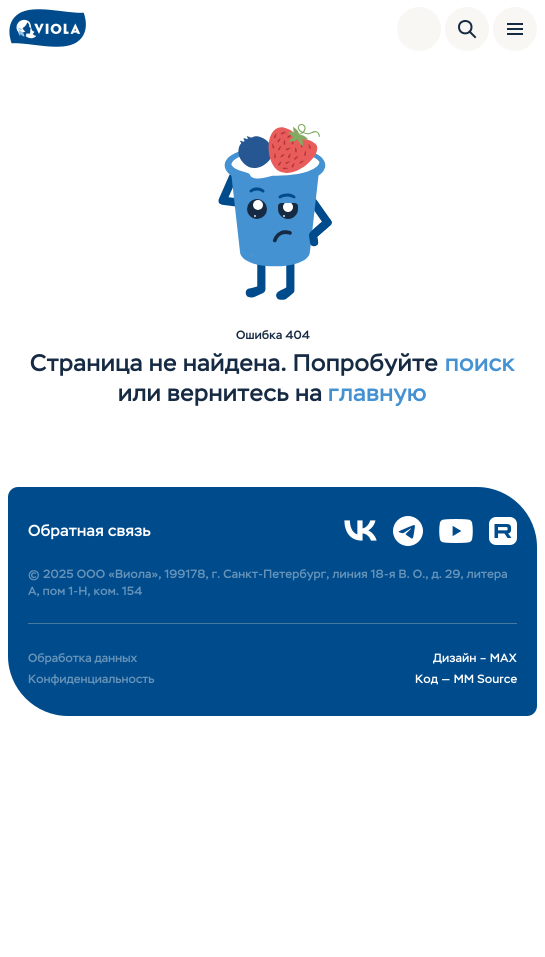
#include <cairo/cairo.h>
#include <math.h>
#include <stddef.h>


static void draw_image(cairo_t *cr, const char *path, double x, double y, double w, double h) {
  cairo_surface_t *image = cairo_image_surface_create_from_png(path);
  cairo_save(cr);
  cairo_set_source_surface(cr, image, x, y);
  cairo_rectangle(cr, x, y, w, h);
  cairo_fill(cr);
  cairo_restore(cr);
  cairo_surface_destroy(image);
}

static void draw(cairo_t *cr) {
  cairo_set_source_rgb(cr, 1, 1, 1);
  cairo_paint(cr);
  draw_image(cr, "images/1.png", 9, 9, 77, 38);
  cairo_set_source_rgb(cr, 249 / 255.0, 247 / 255.0, 244 / 255.0);
  cairo_arc(cr, 419, 29, 22, 0, 2 * M_PI);
  cairo_fill(cr);
  cairo_arc(cr, 467, 29, 22, 0, 2 * M_PI);
  cairo_fill(cr);
  cairo_new_path(cr);
  cairo_move_to(cr, 475, 37);
  cairo_line_to(cr, 469.5, 31.5);
  cairo_move_to(cr, 471.5, 27);
  cairo_curve_to(cr, 471.5, 35.5, 459, 35.5, 459, 27);
  cairo_curve_to(cr, 459, 19, 471.5, 19, 471.5, 27);
  cairo_close_path(cr);
  cairo_set_source_rgb(cr, 22 / 255.0, 43 / 255.0, 67 / 255.0);
  cairo_set_line_cap(cr, CAIRO_LINE_CAP_SQUARE);
  cairo_set_line_join(cr, CAIRO_LINE_JOIN_ROUND);
  cairo_stroke(cr);
  cairo_set_source_rgb(cr, 249 / 255.0, 247 / 255.0, 244 / 255.0);
  cairo_arc(cr, 515, 29, 22, 0, 2 * M_PI);
  cairo_fill(cr);
  cairo_new_path(cr);
  cairo_move_to(cr, 508, 24);
  cairo_line_to(cr, 522, 24);
  cairo_move_to(cr, 508, 29);
  cairo_line_to(cr, 522, 29);
  cairo_move_to(cr, 508, 34);
  cairo_line_to(cr, 522, 34);
  cairo_set_source_rgb(cr, 22 / 255.0, 43 / 255.0, 67 / 255.0);
  cairo_stroke(cr);
  draw_image(cr, "images/2.png", 218, 124, 114, 176);
  draw_image(cr, "images/3.png", 236, 330, 74, 10);
  draw_image(cr, "images/4.png", 30, 353, 408, 23);
  draw_image(cr, "images/5.png", 446, 358, 69, 14);
  draw_image(cr, "images/6.png", 119, 388, 203, 18);
  draw_image(cr, "images/7.png", 329, 388, 97, 18);
  cairo_set_source_rgb(cr, 0, 75 / 255.0, 139 / 255.0);
  cairo_new_path(cr);
  cairo_move_to(cr, 18, 487);
  cairo_line_to(cr, 477, 487);
  cairo_curve_to(cr, 510, 487, 537, 514, 537, 547);
  cairo_line_to(cr, 537, 706);
  cairo_curve_to(cr, 537, 711.5, 532.5, 716, 527, 716);
  cairo_line_to(cr, 68, 716);
  cairo_curve_to(cr, 35, 716, 8, 689, 8, 656);
  cairo_line_to(cr, 8, 497);
  cairo_curve_to(cr, 8, 491.5, 12.5, 487, 18, 487);
  cairo_close_path(cr);
  cairo_fill(cr);
  draw_image(cr, "images/8.png", 28, 524, 123, 16);
  draw_image(cr, "images/9.png", 344, 520, 33, 21);
  draw_image(cr, "images/10.png", 393, 516, 30, 30);
  draw_image(cr, "images/11.png", 439, 519, 34, 24);
  draw_image(cr, "images/12.png", 489, 517, 28, 28);
  draw_image(cr, "images/13.png", 28, 570, 11, 11);
  draw_image(cr, "images/14.png", 43, 569, 464, 12);
  draw_image(cr, "images/15.png", 28, 586, 114, 11);
  cairo_set_source_rgb(cr, 74 / 255.0, 120 / 255.0, 159 / 255.0);
  cairo_rectangle(cr, 28, 623, 489, 1);
  cairo_fill(cr);
  draw_image(cr, "images/16.png", 28, 653, 109, 12);
  draw_image(cr, "images/17.png", 433, 653, 84, 11);
  draw_image(cr, "images/18.png", 28, 674, 127, 12);
  draw_image(cr, "images/19.png", 415, 674, 102, 11);
}

int main(void) {
  cairo_surface_t *surface = cairo_image_surface_create(CAIRO_FORMAT_RGB24, 545, 957);
  cairo_t *cr = cairo_create(surface);
  cairo_font_options_t *options = cairo_font_options_create();
  cairo_font_options_set_hint_metrics(options, CAIRO_HINT_METRICS_OFF);
  cairo_font_options_set_hint_style(options, CAIRO_HINT_STYLE_NONE);
  cairo_set_font_options(cr, options);
  cairo_set_miter_limit(cr, 4);
  draw(cr);
  cairo_surface_write_to_png(surface, "out.png");
  cairo_font_options_destroy(options);
  cairo_destroy(cr);
  cairo_surface_destroy(surface);
  return 0;
}
